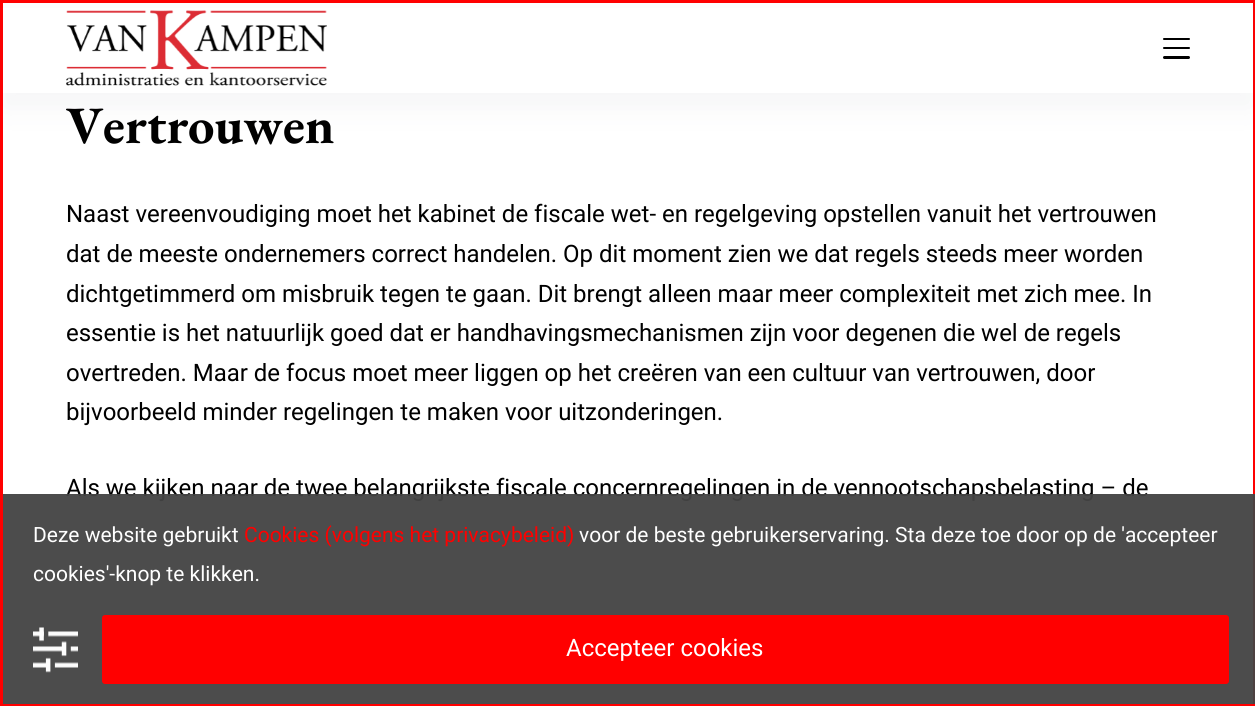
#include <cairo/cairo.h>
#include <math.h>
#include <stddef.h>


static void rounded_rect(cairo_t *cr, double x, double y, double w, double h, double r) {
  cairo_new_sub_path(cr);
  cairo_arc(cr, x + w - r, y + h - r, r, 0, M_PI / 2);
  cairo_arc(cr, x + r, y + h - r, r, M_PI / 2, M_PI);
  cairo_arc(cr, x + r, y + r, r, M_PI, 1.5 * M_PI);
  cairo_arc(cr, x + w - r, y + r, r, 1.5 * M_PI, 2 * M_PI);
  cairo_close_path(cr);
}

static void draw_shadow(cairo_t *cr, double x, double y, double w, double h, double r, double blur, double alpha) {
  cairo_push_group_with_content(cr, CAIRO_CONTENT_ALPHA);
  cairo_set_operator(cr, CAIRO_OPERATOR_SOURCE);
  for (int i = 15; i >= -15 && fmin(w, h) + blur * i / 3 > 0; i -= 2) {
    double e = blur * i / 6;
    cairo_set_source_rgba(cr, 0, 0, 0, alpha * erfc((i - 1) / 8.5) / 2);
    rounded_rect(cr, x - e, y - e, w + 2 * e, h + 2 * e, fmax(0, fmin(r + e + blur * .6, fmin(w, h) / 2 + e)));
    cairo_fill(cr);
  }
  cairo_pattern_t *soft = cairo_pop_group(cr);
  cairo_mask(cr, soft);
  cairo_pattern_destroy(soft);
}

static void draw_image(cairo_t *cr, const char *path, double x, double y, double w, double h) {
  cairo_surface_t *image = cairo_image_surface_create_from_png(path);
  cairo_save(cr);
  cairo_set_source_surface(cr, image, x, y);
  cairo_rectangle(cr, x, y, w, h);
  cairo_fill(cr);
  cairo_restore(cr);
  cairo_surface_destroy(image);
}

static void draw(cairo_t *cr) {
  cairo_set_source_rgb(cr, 1, 1, 1);
  cairo_paint(cr);
  cairo_rectangle(cr, 1.5, -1.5, 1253, 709);
  cairo_set_source_rgb(cr, 1, 0, 0);
  cairo_set_line_width(cr, 3);
  cairo_stroke(cr);
  cairo_set_source_rgb(cr, 43 / 255.0, 61 / 255.0, 79 / 255.0);
  draw_shadow(cr, 3, 18, 1250, 90, 0, 15, 0.05);
  cairo_set_source_rgb(cr, 1, 0, 0);
  cairo_rectangle(cr, 0, 0, 1255, 3);
  cairo_fill(cr);
  cairo_set_source_rgb(cr, 1, 1, 1);
  cairo_rectangle(cr, 3, 8, 1250, 85);
  cairo_fill(cr);
  draw_image(cr, "images/1.png", 66, 10, 261, 76);
  cairo_set_source_rgb(cr, 0, 0, 0);
  rounded_rect(cr, 1163, 38, 27, 2, 1);
  cairo_fill(cr);
  rounded_rect(cr, 1163, 47, 27, 2, 1);
  cairo_fill(cr);
  rounded_rect(cr, 1163, 56, 27, 3, 1.5);
  cairo_fill(cr);
  cairo_set_source_rgb(cr, 1, 0, 0);
  cairo_rectangle(cr, 0, 704, 1255, 2);
  cairo_fill(cr);
  cairo_select_font_face(cr, "EB Garamond", CAIRO_FONT_SLANT_NORMAL, CAIRO_FONT_WEIGHT_BOLD);
  cairo_set_font_size(cr, 52.5);
  cairo_set_source_rgb(cr, 0, 0, 0);
  cairo_move_to(cr, 66, 143);
  cairo_show_text(cr, "Vertrouwen");
  cairo_select_font_face(cr, "Roboto", CAIRO_FONT_SLANT_NORMAL, CAIRO_FONT_WEIGHT_NORMAL);
  cairo_set_font_size(cr, 24);
  cairo_move_to(cr, 66, 222);
  cairo_show_text(cr, "Naast vereenvoudiging moet het kabinet de fiscale wet- en regelgeving opstellen vanuit het vertrouwen");
  cairo_move_to(cr, 66, 262);
  cairo_show_text(cr, "dat de meeste ondernemers correct handelen. Op dit moment zien we dat regels steeds meer worden");
  cairo_move_to(cr, 66, 302);
  cairo_show_text(cr, "dichtgetimmerd om misbruik tegen te gaan. Dit brengt alleen maar meer complexiteit met zich mee. In");
  cairo_move_to(cr, 66, 341);
  cairo_show_text(cr, "essentie is het natuurlijk goed dat er handhavingsmechanismen zijn voor degenen die wel de regels");
  cairo_move_to(cr, 66, 381);
  cairo_show_text(cr, "overtreden. Maar de focus moet meer liggen op het creëren van een cultuur van vertrouwen, door");
  cairo_move_to(cr, 66, 420);
  cairo_show_text(cr, "bijvoorbeeld minder regelingen te maken voor uitzonderingen.");
  cairo_move_to(cr, 66, 496);
  cairo_show_text(cr, "Als we kijken naar de twee belangrijkste fiscale concernregelingen in de vennootschapsbelasting – de");
  cairo_set_source_rgba(cr, 68 / 255.0, 68 / 255.0, 68 / 255.0, 0.95);
  cairo_rectangle(cr, 3, 494, 1252, 210);
  cairo_fill(cr);
  cairo_set_font_size(cr, 21);
  cairo_set_source_rgb(cr, 1, 1, 1);
  cairo_move_to(cr, 33, 542);
  cairo_show_text(cr, "Deze website gebruikt");
  cairo_set_source_rgb(cr, 1, 0, 0);
  cairo_move_to(cr, 244, 542);
  cairo_show_text(cr, "Cookies (volgens het privacybeleid)");
  cairo_set_source_rgb(cr, 1, 1, 1);
  cairo_move_to(cr, 579, 542);
  cairo_show_text(cr, "voor de beste gebruikerservaring. Sta deze toe door op de 'accepteer");
  cairo_move_to(cr, 33, 581);
  cairo_show_text(cr, "cookies'-knop te klikken.");
  draw_image(cr, "images/2.png", 33, 627, 45, 46);
  cairo_set_source_rgb(cr, 1, 0, 0);
  rounded_rect(cr, 102, 615, 1127, 69, 3);
  cairo_fill(cr);
  cairo_set_font_size(cr, 24);
  cairo_set_source_rgb(cr, 1, 1, 1);
  cairo_move_to(cr, 566, 656);
  cairo_show_text(cr, "Accepteer cookies");
}

int main(void) {
  cairo_surface_t *surface = cairo_image_surface_create(CAIRO_FORMAT_RGB24, 1255, 706);
  cairo_t *cr = cairo_create(surface);
  cairo_font_options_t *options = cairo_font_options_create();
  cairo_font_options_set_hint_metrics(options, CAIRO_HINT_METRICS_OFF);
  cairo_font_options_set_hint_style(options, CAIRO_HINT_STYLE_NONE);
  cairo_set_font_options(cr, options);
  cairo_set_miter_limit(cr, 4);
  draw(cr);
  cairo_surface_write_to_png(surface, "out.png");
  cairo_font_options_destroy(options);
  cairo_destroy(cr);
  cairo_surface_destroy(surface);
  return 0;
}
